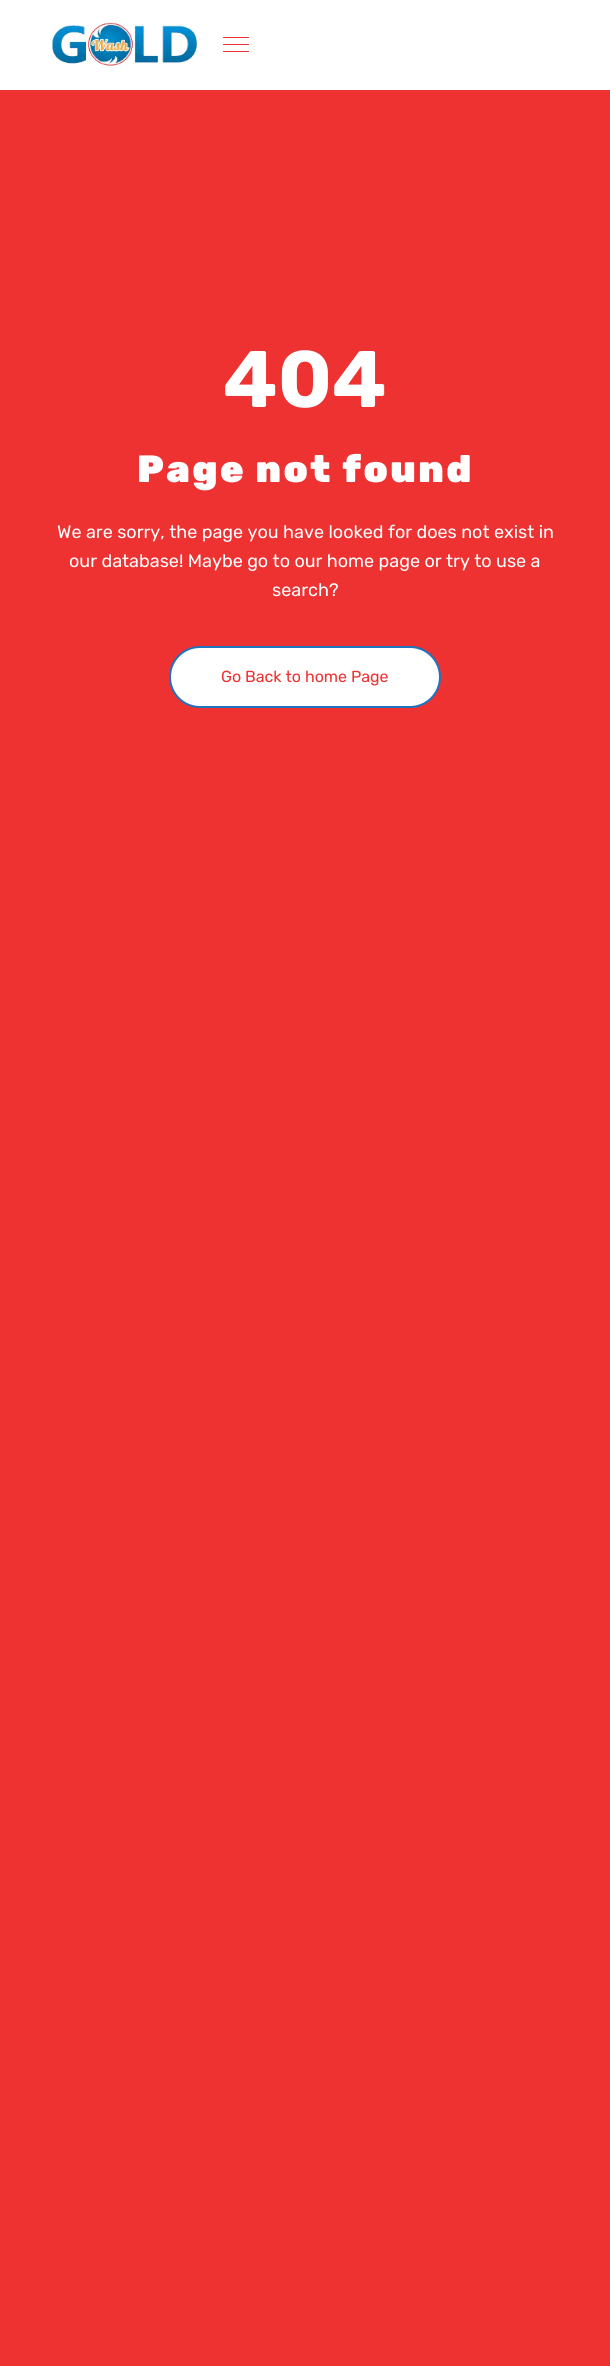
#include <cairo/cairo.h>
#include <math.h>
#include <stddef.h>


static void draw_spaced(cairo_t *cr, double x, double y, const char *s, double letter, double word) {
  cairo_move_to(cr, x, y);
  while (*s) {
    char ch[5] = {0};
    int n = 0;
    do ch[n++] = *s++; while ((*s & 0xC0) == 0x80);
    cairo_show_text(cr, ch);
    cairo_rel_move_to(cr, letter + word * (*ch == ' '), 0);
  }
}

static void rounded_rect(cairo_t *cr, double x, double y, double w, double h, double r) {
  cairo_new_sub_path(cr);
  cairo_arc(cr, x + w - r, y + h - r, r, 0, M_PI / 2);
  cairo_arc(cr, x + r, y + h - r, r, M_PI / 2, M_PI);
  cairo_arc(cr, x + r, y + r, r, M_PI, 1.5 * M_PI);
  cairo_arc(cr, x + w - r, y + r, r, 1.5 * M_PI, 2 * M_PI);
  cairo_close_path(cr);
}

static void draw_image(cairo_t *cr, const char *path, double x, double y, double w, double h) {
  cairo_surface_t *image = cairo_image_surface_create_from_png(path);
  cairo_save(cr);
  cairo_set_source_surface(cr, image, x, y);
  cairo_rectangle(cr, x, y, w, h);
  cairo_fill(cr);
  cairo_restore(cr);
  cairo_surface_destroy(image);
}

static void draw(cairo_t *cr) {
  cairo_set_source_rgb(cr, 238 / 255.0, 49 / 255.0, 49 / 255.0);
  cairo_paint(cr);
  cairo_set_source_rgb(cr, 1, 1, 1);
  cairo_rectangle(cr, 0, 0, 610, 90);
  cairo_fill(cr);
  draw_image(cr, "images/1.png", 52, 22, 145, 44);
  cairo_set_source_rgb(cr, 238 / 255.0, 49 / 255.0, 49 / 255.0);
  cairo_new_path(cr);
  cairo_move_to(cr, 223.5, 37);
  cairo_line_to(cr, 238, 37);
  cairo_line_to(cr, 238, 38);
  cairo_line_to(cr, 223.5, 38);
  cairo_curve_to(cr, 223, 38, 223, 38, 223, 37.5);
  cairo_curve_to(cr, 223, 37, 223, 37, 223.5, 37);
  cairo_close_path(cr);
  cairo_fill(cr);
  cairo_new_path(cr);
  cairo_move_to(cr, 234, 37);
  cairo_line_to(cr, 248.5, 37);
  cairo_curve_to(cr, 249, 37, 249, 37, 249, 37.5);
  cairo_curve_to(cr, 249, 38, 249, 38, 248.5, 38);
  cairo_line_to(cr, 234, 38);
  cairo_close_path(cr);
  cairo_fill(cr);
  cairo_new_path(cr);
  cairo_move_to(cr, 223.5, 44);
  cairo_line_to(cr, 238, 44);
  cairo_line_to(cr, 238, 45);
  cairo_line_to(cr, 223.5, 45);
  cairo_curve_to(cr, 223, 45, 223, 45, 223, 44.5);
  cairo_curve_to(cr, 223, 44, 223, 44, 223.5, 44);
  cairo_close_path(cr);
  cairo_fill(cr);
  cairo_new_path(cr);
  cairo_move_to(cr, 234, 44);
  cairo_line_to(cr, 248.5, 44);
  cairo_curve_to(cr, 249, 44, 249, 44, 249, 44.5);
  cairo_curve_to(cr, 249, 45, 249, 45, 248.5, 45);
  cairo_line_to(cr, 234, 45);
  cairo_close_path(cr);
  cairo_fill(cr);
  cairo_new_path(cr);
  cairo_move_to(cr, 223.5, 51);
  cairo_line_to(cr, 238, 51);
  cairo_line_to(cr, 238, 52);
  cairo_line_to(cr, 223.5, 52);
  cairo_curve_to(cr, 223, 52, 223, 52, 223, 51.5);
  cairo_curve_to(cr, 223, 51, 223, 51, 223.5, 51);
  cairo_close_path(cr);
  cairo_fill(cr);
  cairo_new_path(cr);
  cairo_move_to(cr, 234, 51);
  cairo_line_to(cr, 248.5, 51);
  cairo_curve_to(cr, 249, 51, 249, 51, 249, 51.5);
  cairo_curve_to(cr, 249, 52, 249, 52, 248.5, 52);
  cairo_line_to(cr, 234, 52);
  cairo_close_path(cr);
  cairo_fill(cr);
  cairo_set_source_rgb(cr, 1, 1, 1);
  rounded_rect(cr, 170, 647, 270, 60, 30);
  cairo_fill_preserve(cr);
  cairo_set_source_rgb(cr, 30 / 255.0, 115 / 255.0, 190 / 255.0);
  cairo_stroke(cr);
  cairo_select_font_face(cr, "Rubik", CAIRO_FONT_SLANT_NORMAL, CAIRO_FONT_WEIGHT_BOLD);
  cairo_set_font_size(cr, 80);
  cairo_set_source_rgb(cr, 1, 1, 1);
  cairo_move_to(cr, 223, 407);
  cairo_show_text(cr, "404");
  cairo_select_font_face(cr, "Rubik Black", CAIRO_FONT_SLANT_NORMAL, CAIRO_FONT_WEIGHT_NORMAL);
  cairo_set_font_size(cr, 38);
  draw_spaced(cr, 137, 482, "Page not found", 2.4, 0);
  cairo_select_font_face(cr, "Rubik", CAIRO_FONT_SLANT_NORMAL, CAIRO_FONT_WEIGHT_NORMAL);
  cairo_set_font_size(cr, 18);
  cairo_move_to(cr, 57, 538);
  cairo_show_text(cr, "We are sorry, the page you have looked for does not exist in");
  cairo_move_to(cr, 69, 567);
  cairo_show_text(cr, "our database! Maybe go to our home page or try to use a");
  cairo_move_to(cr, 272, 596);
  cairo_show_text(cr, "search?");
  cairo_set_font_size(cr, 16);
  cairo_set_source_rgb(cr, 238 / 255.0, 49 / 255.0, 49 / 255.0);
  cairo_move_to(cr, 221, 682);
  cairo_show_text(cr, "Go Back to home Page");
}

int main(void) {
  cairo_surface_t *surface = cairo_image_surface_create(CAIRO_FORMAT_RGB24, 610, 2366);
  cairo_t *cr = cairo_create(surface);
  cairo_font_options_t *options = cairo_font_options_create();
  cairo_font_options_set_hint_metrics(options, CAIRO_HINT_METRICS_OFF);
  cairo_font_options_set_hint_style(options, CAIRO_HINT_STYLE_NONE);
  cairo_set_font_options(cr, options);
  cairo_set_miter_limit(cr, 4);
  draw(cr);
  cairo_surface_write_to_png(surface, "out.png");
  cairo_font_options_destroy(options);
  cairo_destroy(cr);
  cairo_surface_destroy(surface);
  return 0;
}
